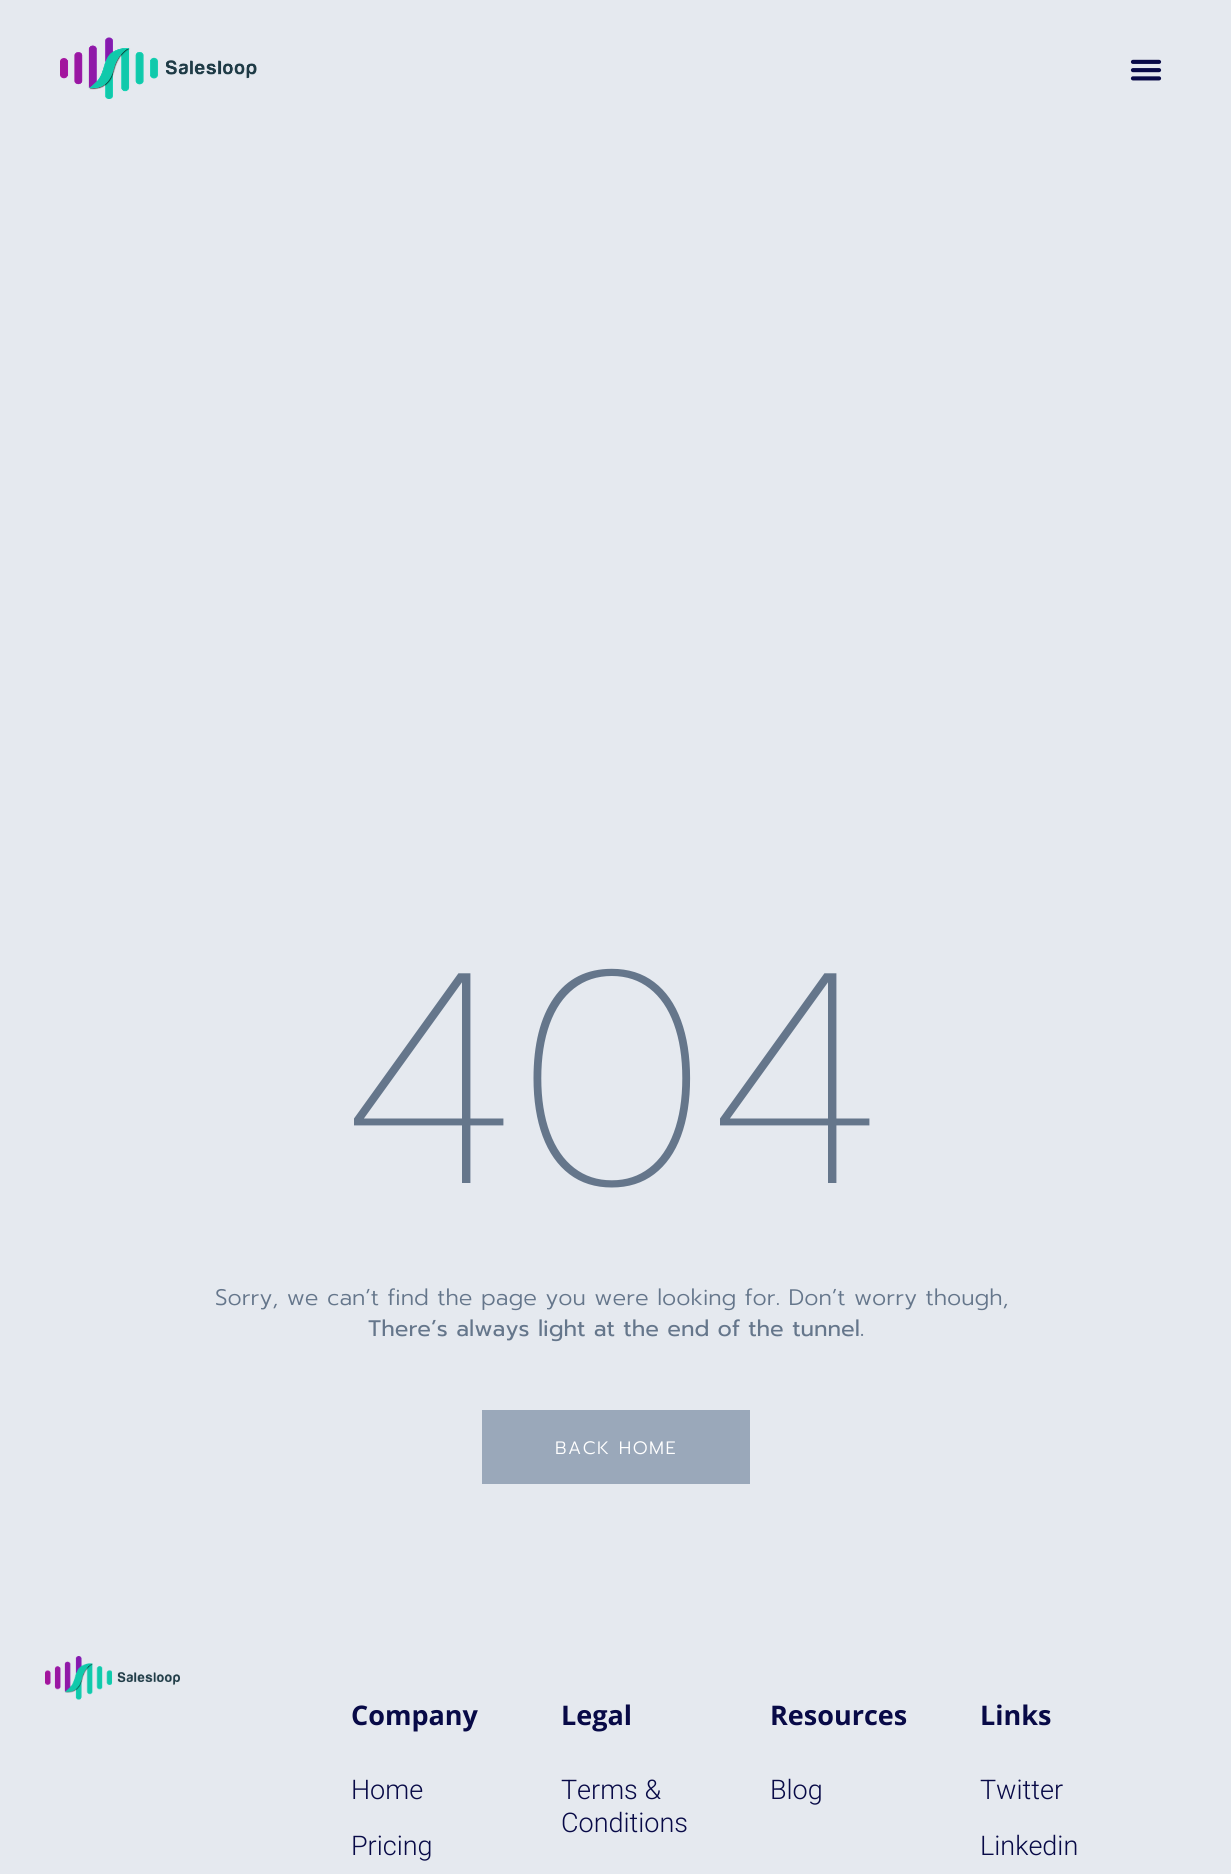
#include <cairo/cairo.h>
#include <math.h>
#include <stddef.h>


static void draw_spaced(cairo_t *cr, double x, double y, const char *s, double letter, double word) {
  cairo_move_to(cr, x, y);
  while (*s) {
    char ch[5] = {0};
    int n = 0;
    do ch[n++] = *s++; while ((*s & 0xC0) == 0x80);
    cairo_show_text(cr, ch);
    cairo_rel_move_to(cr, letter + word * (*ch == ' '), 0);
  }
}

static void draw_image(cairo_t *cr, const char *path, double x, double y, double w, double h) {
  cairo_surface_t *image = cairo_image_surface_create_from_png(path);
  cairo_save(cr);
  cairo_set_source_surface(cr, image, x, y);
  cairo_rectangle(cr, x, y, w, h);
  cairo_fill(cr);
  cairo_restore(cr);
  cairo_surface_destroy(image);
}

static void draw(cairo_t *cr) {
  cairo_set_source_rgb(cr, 229 / 255.0, 233 / 255.0, 239 / 255.0);
  cairo_paint(cr);
  draw_image(cr, "images/1.png", 60, 37, 197, 62);
  draw_image(cr, "images/2.png", 1130, 59, 32, 22);
  cairo_set_source_rgb(cr, 154 / 255.0, 168 / 255.0, 186 / 255.0);
  cairo_rectangle(cr, 482, 1410, 268, 74);
  cairo_fill(cr);
  draw_image(cr, "images/3.png", 45, 1656, 135, 44);
  cairo_select_font_face(cr, "Prompt Thin", CAIRO_FONT_SLANT_NORMAL, CAIRO_FONT_WEIGHT_NORMAL);
  cairo_set_font_size(cr, 300);
  cairo_set_source_rgb(cr, 101 / 255.0, 118 / 255.0, 139 / 255.0);
  cairo_move_to(cr, 342, 1183);
  cairo_show_text(cr, "404");
  cairo_select_font_face(cr, "Prompt Light", CAIRO_FONT_SLANT_NORMAL, CAIRO_FONT_WEIGHT_NORMAL);
  cairo_set_font_size(cr, 22.5);
  cairo_move_to(cr, 215, 1305);
  cairo_show_text(cr, "Sorry, we can’t find the page you were looking for. Don’t worry though,");
  cairo_select_font_face(cr, "Prompt", CAIRO_FONT_SLANT_NORMAL, CAIRO_FONT_WEIGHT_NORMAL);
  cairo_move_to(cr, 368, 1336);
  cairo_show_text(cr, "There’s always light at the end of the tunnel.");
  cairo_select_font_face(cr, "Prompt Light", CAIRO_FONT_SLANT_NORMAL, CAIRO_FONT_WEIGHT_NORMAL);
  cairo_set_font_size(cr, 18);
  cairo_set_source_rgb(cr, 1, 1, 1);
  draw_spaced(cr, 555, 1454, "BACK HOME", 1.5, 0);
  cairo_select_font_face(cr, "Open Sans", CAIRO_FONT_SLANT_NORMAL, CAIRO_FONT_WEIGHT_BOLD);
  cairo_set_font_size(cr, 27);
  cairo_set_source_rgb(cr, 8 / 255.0, 10 / 255.0, 71 / 255.0);
  cairo_move_to(cr, 351, 1725);
  cairo_show_text(cr, "Company");
  cairo_select_font_face(cr, "Roboto Light", CAIRO_FONT_SLANT_NORMAL, CAIRO_FONT_WEIGHT_NORMAL);
  cairo_move_to(cr, 351, 1799);
  cairo_show_text(cr, "Home");
  cairo_move_to(cr, 351, 1855);
  cairo_show_text(cr, "Pricing");
  cairo_select_font_face(cr, "Open Sans", CAIRO_FONT_SLANT_NORMAL, CAIRO_FONT_WEIGHT_BOLD);
  cairo_move_to(cr, 561, 1725);
  cairo_show_text(cr, "Legal");
  cairo_select_font_face(cr, "Roboto Light", CAIRO_FONT_SLANT_NORMAL, CAIRO_FONT_WEIGHT_NORMAL);
  cairo_move_to(cr, 561, 1799);
  cairo_show_text(cr, "Terms &");
  cairo_move_to(cr, 561, 1832);
  cairo_show_text(cr, "Conditions");
  cairo_select_font_face(cr, "Open Sans", CAIRO_FONT_SLANT_NORMAL, CAIRO_FONT_WEIGHT_BOLD);
  cairo_move_to(cr, 770, 1725);
  cairo_show_text(cr, "Resources");
  cairo_select_font_face(cr, "Roboto Light", CAIRO_FONT_SLANT_NORMAL, CAIRO_FONT_WEIGHT_NORMAL);
  cairo_move_to(cr, 770, 1799);
  cairo_show_text(cr, "Blog");
  cairo_select_font_face(cr, "Open Sans", CAIRO_FONT_SLANT_NORMAL, CAIRO_FONT_WEIGHT_BOLD);
  cairo_move_to(cr, 980, 1725);
  cairo_show_text(cr, "Links");
  cairo_select_font_face(cr, "Roboto Light", CAIRO_FONT_SLANT_NORMAL, CAIRO_FONT_WEIGHT_NORMAL);
  cairo_move_to(cr, 980, 1799);
  cairo_show_text(cr, "Twitter");
  cairo_move_to(cr, 980, 1855);
  cairo_show_text(cr, "Linkedin");
}

int main(void) {
  cairo_surface_t *surface = cairo_image_surface_create(CAIRO_FORMAT_RGB24, 1231, 1874);
  cairo_t *cr = cairo_create(surface);
  cairo_font_options_t *options = cairo_font_options_create();
  cairo_font_options_set_hint_metrics(options, CAIRO_HINT_METRICS_OFF);
  cairo_font_options_set_hint_style(options, CAIRO_HINT_STYLE_NONE);
  cairo_set_font_options(cr, options);
  cairo_set_miter_limit(cr, 4);
  draw(cr);
  cairo_surface_write_to_png(surface, "out.png");
  cairo_font_options_destroy(options);
  cairo_destroy(cr);
  cairo_surface_destroy(surface);
  return 0;
}
